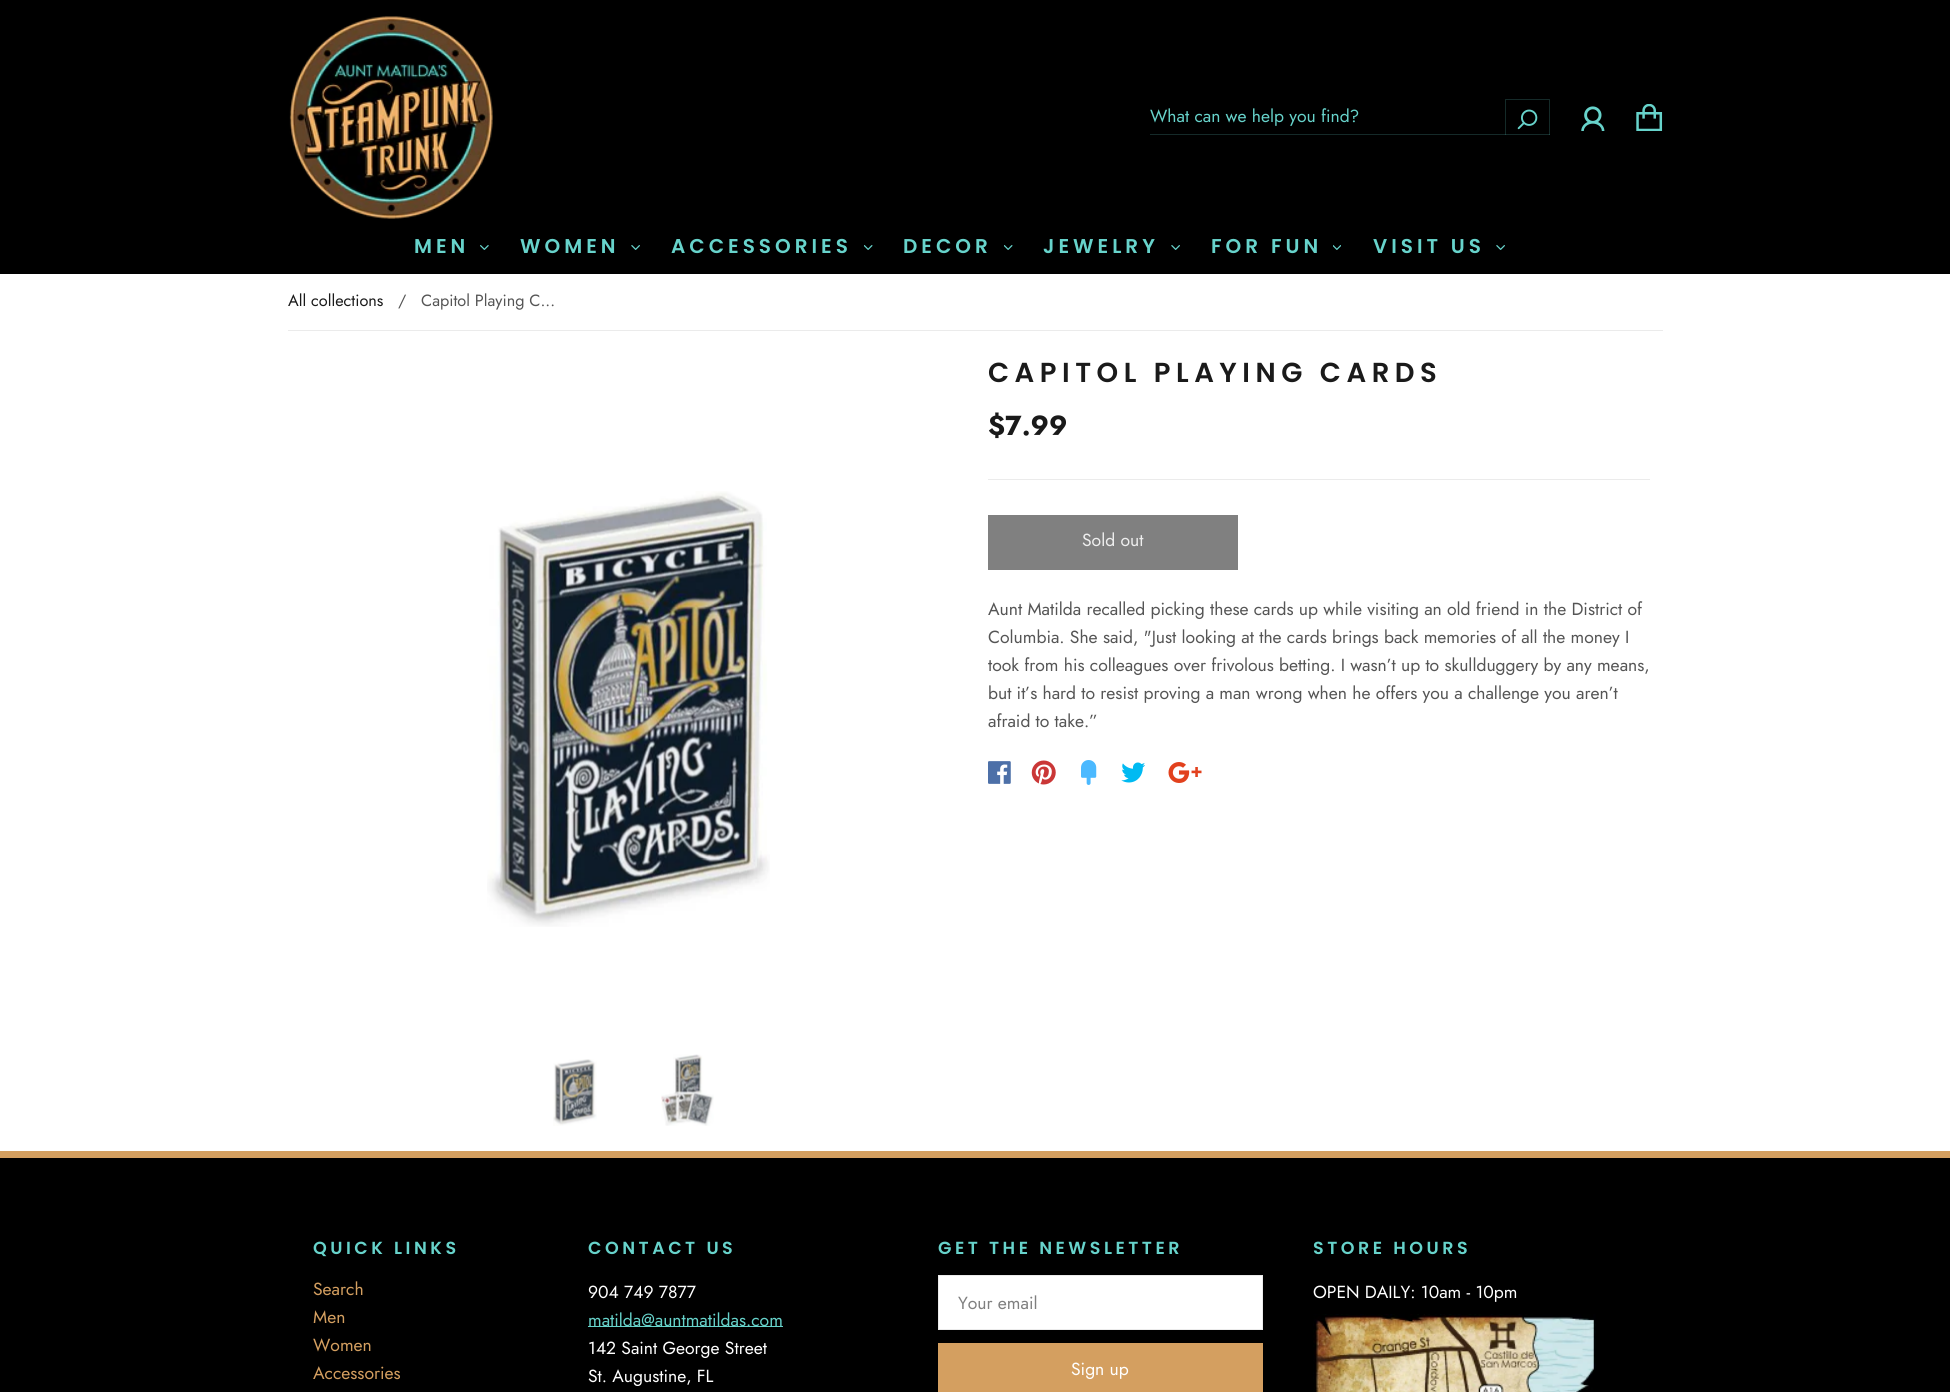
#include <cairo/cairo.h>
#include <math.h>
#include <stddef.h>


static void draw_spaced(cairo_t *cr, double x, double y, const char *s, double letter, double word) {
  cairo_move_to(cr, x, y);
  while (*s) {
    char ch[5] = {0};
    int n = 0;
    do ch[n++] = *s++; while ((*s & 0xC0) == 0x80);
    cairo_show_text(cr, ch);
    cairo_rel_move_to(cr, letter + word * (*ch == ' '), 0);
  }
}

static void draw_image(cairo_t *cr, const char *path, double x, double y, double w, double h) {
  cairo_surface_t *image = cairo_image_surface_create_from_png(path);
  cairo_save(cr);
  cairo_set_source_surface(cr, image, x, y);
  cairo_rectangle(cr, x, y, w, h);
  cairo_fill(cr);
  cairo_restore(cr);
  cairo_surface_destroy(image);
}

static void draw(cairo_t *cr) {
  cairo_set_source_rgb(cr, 1, 1, 1);
  cairo_paint(cr);
  cairo_set_source_rgb(cr, 0, 0, 0);
  cairo_rectangle(cr, 0, 0, 1950, 274);
  cairo_fill(cr);
  draw_image(cr, "images/1.png", 289, 16, 204, 203);
  cairo_set_source_rgb(cr, 21 / 255.0, 42 / 255.0, 41 / 255.0);
  cairo_rectangle(cr, 1150, 134, 400, 1);
  cairo_fill(cr);
  cairo_new_path(cr);
  cairo_move_to(cr, 1505, 99);
  cairo_line_to(cr, 1550, 99);
  cairo_line_to(cr, 1549, 100);
  cairo_line_to(cr, 1506, 100);
  cairo_close_path(cr);
  cairo_fill(cr);
  cairo_set_source_rgba(cr, 103 / 255.0, 211 / 255.0, 203 / 255.0, 0.2);
  cairo_new_path(cr);
  cairo_move_to(cr, 1550, 99);
  cairo_line_to(cr, 1550, 135);
  cairo_line_to(cr, 1549, 135);
  cairo_line_to(cr, 1549, 100);
  cairo_close_path(cr);
  cairo_move_to(cr, 1505, 135);
  cairo_line_to(cr, 1505, 99);
  cairo_line_to(cr, 1506, 100);
  cairo_line_to(cr, 1506, 135);
  cairo_close_path(cr);
  cairo_fill(cr);
  draw_image(cr, "images/2.png", 1517, 109, 21, 21);
  draw_image(cr, "images/3.png", 1581, 106, 24, 25);
  draw_image(cr, "images/4.png", 1636, 104, 27, 27);
  draw_image(cr, "images/5.png", 480, 245, 9, 5);
  draw_image(cr, "images/6.png", 631, 245, 9, 5);
  draw_image(cr, "images/7.png", 864, 245, 9, 5);
  draw_image(cr, "images/7.png", 1004, 245, 9, 5);
  draw_image(cr, "images/6.png", 1171, 245, 9, 5);
  draw_image(cr, "images/8.png", 1333, 245, 8, 5);
  draw_image(cr, "images/6.png", 1496, 245, 9, 5);
  cairo_set_source_rgb(cr, 235 / 255.0, 235 / 255.0, 235 / 255.0);
  cairo_rectangle(cr, 288, 330, 1375, 1);
  cairo_fill(cr);
  draw_image(cr, "images/9.png", 487, 491, 283, 436);
  draw_image(cr, "images/10.png", 553, 1059, 44, 67);
  draw_image(cr, "images/11.png", 661, 1054, 53, 72);
  cairo_rectangle(cr, 988, 479, 662, 1);
  cairo_fill(cr);
  cairo_set_source_rgb(cr, 128 / 255.0, 128 / 255.0, 128 / 255.0);
  cairo_rectangle(cr, 988, 515, 250, 55);
  cairo_fill(cr);
  draw_image(cr, "images/12.png", 988, 761, 23, 23);
  draw_image(cr, "images/13.png", 1031, 760, 25, 25);
  draw_image(cr, "images/14.png", 1081, 760, 16, 25);
  draw_image(cr, "images/15.png", 1121, 762, 24, 21);
  draw_image(cr, "images/16.png", 1168, 762, 34, 21);
  cairo_set_source_rgb(cr, 0, 0, 0);
  cairo_rectangle(cr, 0, 1158, 1950, 234);
  cairo_fill(cr);
  cairo_set_source_rgb(cr, 212 / 255.0, 159 / 255.0, 96 / 255.0);
  cairo_rectangle(cr, 0, 1151, 1950, 7);
  cairo_fill(cr);
  cairo_set_source_rgb(cr, 103 / 255.0, 211 / 255.0, 203 / 255.0);
  cairo_rectangle(cr, 588, 1326, 195, 1);
  cairo_fill(cr);
  cairo_set_source_rgb(cr, 1, 1, 1);
  cairo_rectangle(cr, 938.5, 1275.5, 324, 54);
  cairo_fill_preserve(cr);
  cairo_set_source_rgb(cr, 235 / 255.0, 235 / 255.0, 235 / 255.0);
  cairo_set_line_width(cr, 1);
  cairo_stroke(cr);
  cairo_set_source_rgb(cr, 212 / 255.0, 159 / 255.0, 96 / 255.0);
  cairo_rectangle(cr, 938, 1343, 325, 49);
  cairo_fill(cr);
  draw_image(cr, "images/17.png", 1313, 1314, 283, 78);
  cairo_select_font_face(cr, "Jost", CAIRO_FONT_SLANT_NORMAL, CAIRO_FONT_WEIGHT_NORMAL);
  cairo_set_font_size(cr, 17.5);
  cairo_set_source_rgb(cr, 103 / 255.0, 211 / 255.0, 203 / 255.0);
  cairo_move_to(cr, 1150, 122);
  cairo_show_text(cr, "What can we help you find?");
  cairo_select_font_face(cr, "Poppins SemiBold", CAIRO_FONT_SLANT_NORMAL, CAIRO_FONT_WEIGHT_NORMAL);
  cairo_set_font_size(cr, 20);
  draw_spaced(cr, 414, 253, "MEN", 4, 0);
  draw_spaced(cr, 520, 253, "WOMEN", 4, 0);
  draw_spaced(cr, 671, 253, "ACCESSORIES", 4, 0);
  draw_spaced(cr, 903, 253, "DECOR", 4, 0);
  draw_spaced(cr, 1043, 253, "JEWELRY", 4, 0);
  draw_spaced(cr, 1211, 253, "FOR FUN", 4, 0);
  draw_spaced(cr, 1373, 253, "VISIT US", 4, 0);
  cairo_select_font_face(cr, "Jost", CAIRO_FONT_SLANT_NORMAL, CAIRO_FONT_WEIGHT_NORMAL);
  cairo_set_font_size(cr, 16.25);
  cairo_set_source_rgb(cr, 26 / 255.0, 26 / 255.0, 26 / 255.0);
  cairo_move_to(cr, 288, 306);
  cairo_show_text(cr, "All collections");
  cairo_set_source_rgb(cr, 85 / 255.0, 85 / 255.0, 85 / 255.0);
  cairo_move_to(cr, 398, 306);
  cairo_show_text(cr, "/");
  cairo_move_to(cr, 421, 306);
  cairo_show_text(cr, "Capitol Playing C...");
  cairo_select_font_face(cr, "Poppins SemiBold", CAIRO_FONT_SLANT_NORMAL, CAIRO_FONT_WEIGHT_NORMAL);
  cairo_set_font_size(cr, 27.5);
  cairo_set_source_rgb(cr, 26 / 255.0, 26 / 255.0, 26 / 255.0);
  draw_spaced(cr, 988, 382, "CAPITOL PLAYING CARDS", 5.5, 0);
  cairo_select_font_face(cr, "Jost", CAIRO_FONT_SLANT_NORMAL, CAIRO_FONT_WEIGHT_BOLD);
  cairo_move_to(cr, 988, 435);
  cairo_show_text(cr, "$7.99");
  cairo_select_font_face(cr, "Jost", CAIRO_FONT_SLANT_NORMAL, CAIRO_FONT_WEIGHT_NORMAL);
  cairo_set_font_size(cr, 17.5);
  cairo_set_source_rgb(cr, 238 / 255.0, 238 / 255.0, 238 / 255.0);
  cairo_move_to(cr, 1082, 546);
  cairo_show_text(cr, "Sold out");
  cairo_set_source_rgb(cr, 85 / 255.0, 85 / 255.0, 85 / 255.0);
  cairo_move_to(cr, 988, 615);
  cairo_show_text(cr, "Aunt Matilda recalled picking these cards up while visiting an old friend in the District of");
  cairo_move_to(cr, 988, 643);
  cairo_show_text(cr, "Columbia. She said, \"Just looking at the cards brings back memories of all the money I");
  cairo_move_to(cr, 988, 671);
  cairo_show_text(cr, "took from his colleagues over frivolous betting. I wasn’t up to skullduggery by any means,");
  cairo_move_to(cr, 988, 699);
  cairo_show_text(cr, "but it’s hard to resist proving a man wrong when he offers you a challenge you aren’t");
  cairo_move_to(cr, 988, 727);
  cairo_show_text(cr, "afraid to take.”");
  cairo_select_font_face(cr, "Poppins SemiBold", CAIRO_FONT_SLANT_NORMAL, CAIRO_FONT_WEIGHT_NORMAL);
  cairo_set_source_rgb(cr, 103 / 255.0, 211 / 255.0, 203 / 255.0);
  draw_spaced(cr, 313, 1254, "QUICK LINKS", 3.5, 0);
  cairo_select_font_face(cr, "Jost", CAIRO_FONT_SLANT_NORMAL, CAIRO_FONT_WEIGHT_NORMAL);
  cairo_set_source_rgb(cr, 212 / 255.0, 159 / 255.0, 96 / 255.0);
  cairo_move_to(cr, 313, 1295);
  cairo_show_text(cr, "Search");
  cairo_move_to(cr, 313, 1323);
  cairo_show_text(cr, "Men");
  cairo_move_to(cr, 313, 1351);
  cairo_show_text(cr, "Women");
  cairo_move_to(cr, 313, 1379);
  cairo_show_text(cr, "Accessories");
  cairo_select_font_face(cr, "Poppins SemiBold", CAIRO_FONT_SLANT_NORMAL, CAIRO_FONT_WEIGHT_NORMAL);
  cairo_set_source_rgb(cr, 103 / 255.0, 211 / 255.0, 203 / 255.0);
  draw_spaced(cr, 588, 1254, "CONTACT US", 3.5, 0);
  cairo_select_font_face(cr, "Jost", CAIRO_FONT_SLANT_NORMAL, CAIRO_FONT_WEIGHT_NORMAL);
  cairo_set_source_rgb(cr, 1, 1, 1);
  cairo_move_to(cr, 588, 1298);
  cairo_show_text(cr, "904 749 7877");
  cairo_set_source_rgb(cr, 103 / 255.0, 211 / 255.0, 203 / 255.0);
  cairo_move_to(cr, 588, 1326);
  cairo_show_text(cr, "matilda@auntmatildas.com");
  cairo_set_source_rgb(cr, 1, 1, 1);
  cairo_move_to(cr, 588, 1354);
  cairo_show_text(cr, "142 Saint George Street");
  cairo_move_to(cr, 588, 1382);
  cairo_show_text(cr, "St. Augustine, FL");
  cairo_select_font_face(cr, "Poppins SemiBold", CAIRO_FONT_SLANT_NORMAL, CAIRO_FONT_WEIGHT_NORMAL);
  cairo_set_source_rgb(cr, 103 / 255.0, 211 / 255.0, 203 / 255.0);
  draw_spaced(cr, 938, 1254, "GET THE NEWSLETTER", 3.5, 0);
  cairo_select_font_face(cr, "Jost", CAIRO_FONT_SLANT_NORMAL, CAIRO_FONT_WEIGHT_NORMAL);
  cairo_set_source_rgb(cr, 127 / 255.0, 127 / 255.0, 127 / 255.0);
  cairo_move_to(cr, 958, 1309);
  cairo_show_text(cr, "Your email");
  cairo_set_source_rgb(cr, 1, 1, 1);
  cairo_move_to(cr, 1071, 1375);
  cairo_show_text(cr, "Sign up");
  cairo_select_font_face(cr, "Poppins SemiBold", CAIRO_FONT_SLANT_NORMAL, CAIRO_FONT_WEIGHT_NORMAL);
  cairo_set_source_rgb(cr, 103 / 255.0, 211 / 255.0, 203 / 255.0);
  draw_spaced(cr, 1313, 1254, "STORE HOURS", 3.5, 0);
  cairo_select_font_face(cr, "Jost", CAIRO_FONT_SLANT_NORMAL, CAIRO_FONT_WEIGHT_NORMAL);
  cairo_set_source_rgb(cr, 1, 1, 1);
  cairo_move_to(cr, 1313, 1298);
  cairo_show_text(cr, "OPEN DAILY: 10am - 10pm");
}

int main(void) {
  cairo_surface_t *surface = cairo_image_surface_create(CAIRO_FORMAT_RGB24, 1950, 1392);
  cairo_t *cr = cairo_create(surface);
  cairo_font_options_t *options = cairo_font_options_create();
  cairo_font_options_set_hint_metrics(options, CAIRO_HINT_METRICS_OFF);
  cairo_font_options_set_hint_style(options, CAIRO_HINT_STYLE_NONE);
  cairo_set_font_options(cr, options);
  cairo_set_miter_limit(cr, 4);
  draw(cr);
  cairo_surface_write_to_png(surface, "out.png");
  cairo_font_options_destroy(options);
  cairo_destroy(cr);
  cairo_surface_destroy(surface);
  return 0;
}
